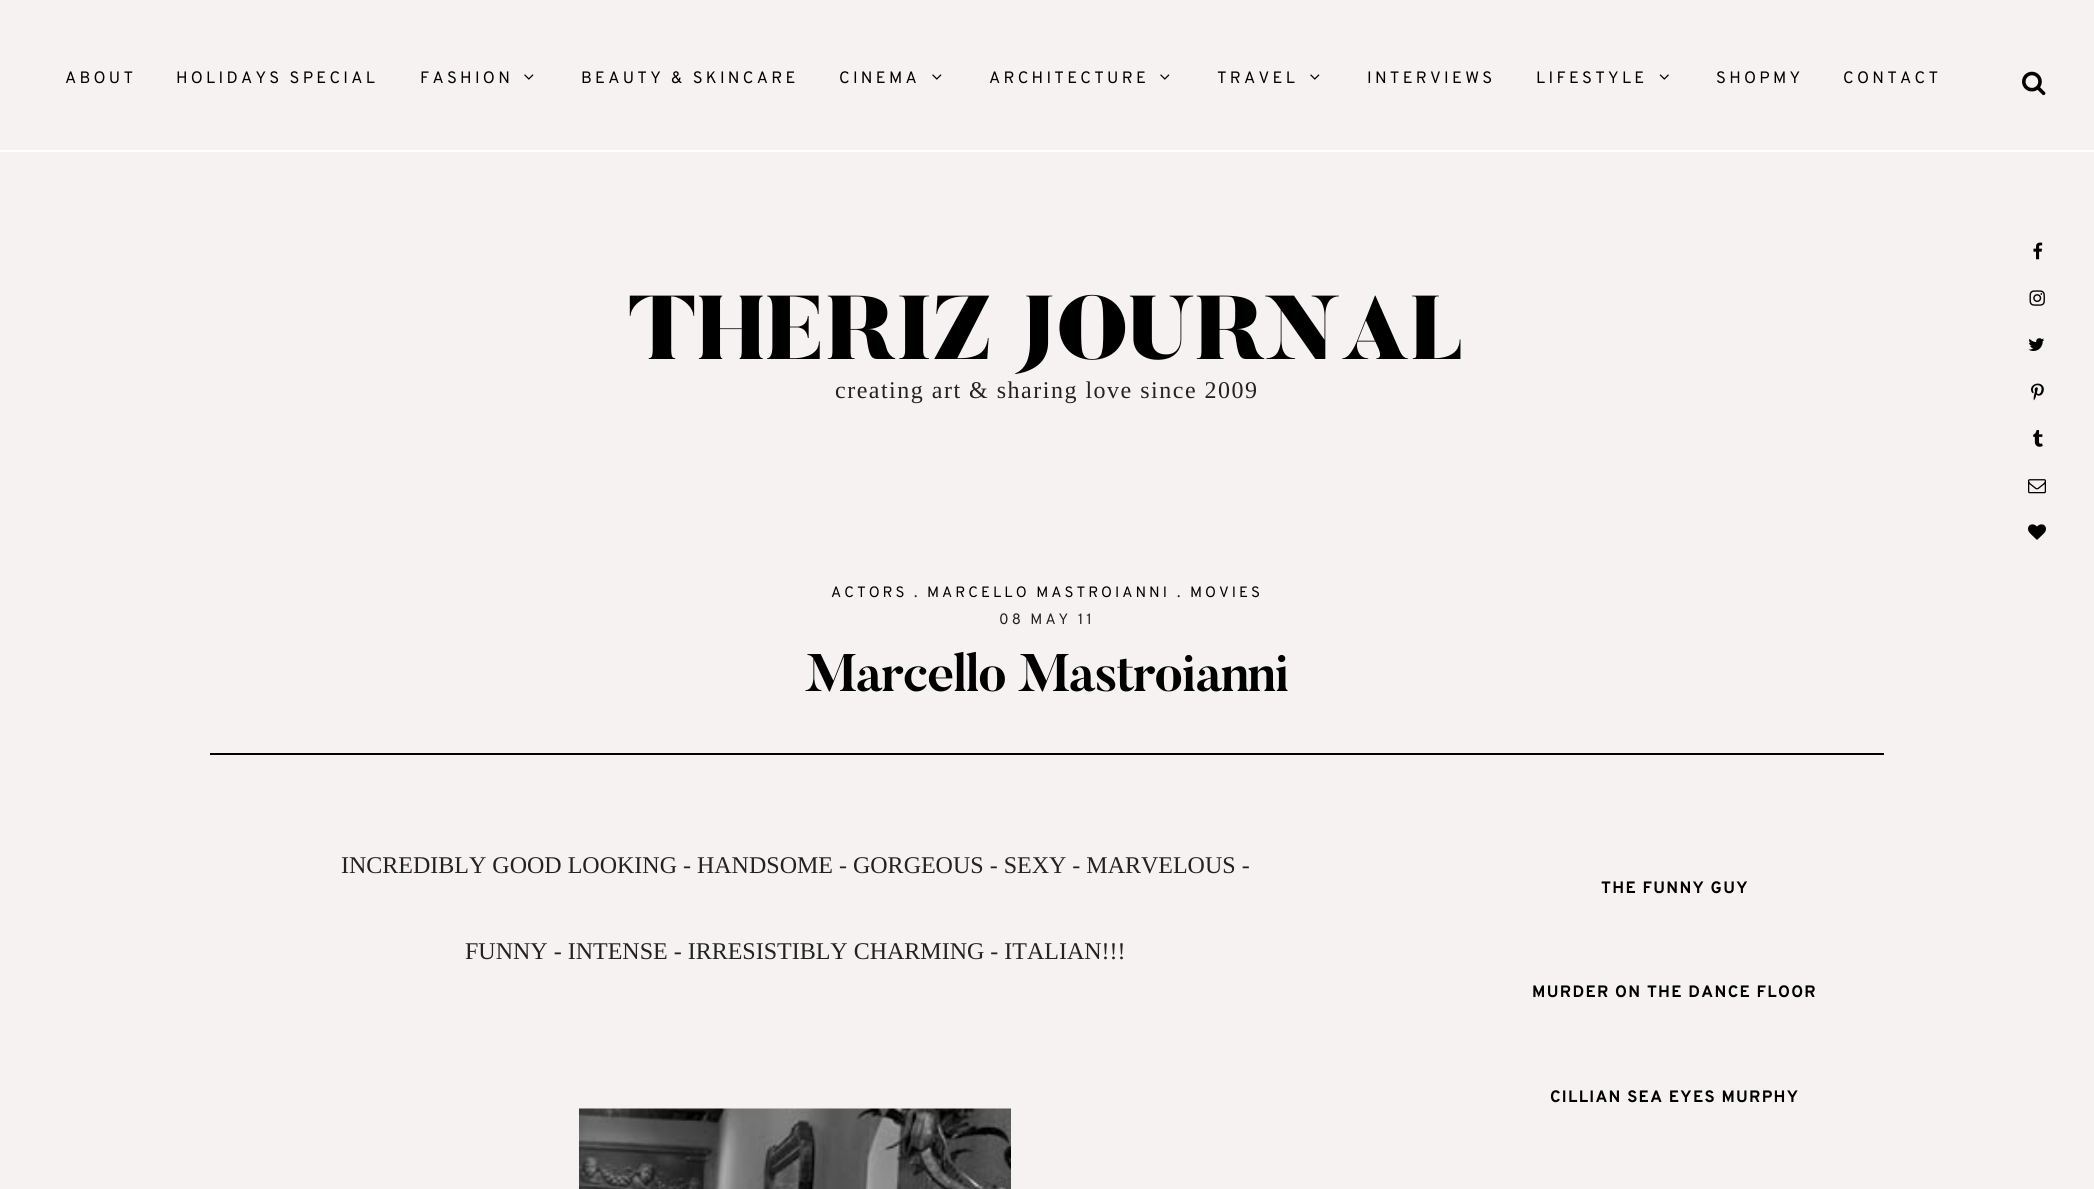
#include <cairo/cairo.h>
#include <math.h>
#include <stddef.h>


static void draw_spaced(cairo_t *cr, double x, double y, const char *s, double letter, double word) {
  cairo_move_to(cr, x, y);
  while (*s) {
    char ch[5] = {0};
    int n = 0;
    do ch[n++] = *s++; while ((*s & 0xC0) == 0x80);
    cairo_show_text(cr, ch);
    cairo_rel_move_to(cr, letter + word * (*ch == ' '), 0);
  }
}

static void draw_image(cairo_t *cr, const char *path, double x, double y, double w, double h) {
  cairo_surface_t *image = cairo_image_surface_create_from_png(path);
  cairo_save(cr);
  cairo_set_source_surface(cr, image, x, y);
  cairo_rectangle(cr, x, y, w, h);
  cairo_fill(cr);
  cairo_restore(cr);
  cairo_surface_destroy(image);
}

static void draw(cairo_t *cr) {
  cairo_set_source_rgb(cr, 245 / 255.0, 242 / 255.0, 241 / 255.0);
  cairo_paint(cr);
  cairo_set_source_rgb(cr, 1, 1, 1);
  cairo_rectangle(cr, 0, 150, 2094, 2);
  cairo_fill(cr);
  draw_image(cr, "images/1.png", 524, 74, 10, 6);
  draw_image(cr, "images/1.png", 932, 74, 10, 6);
  draw_image(cr, "images/1.png", 1160, 74, 10, 6);
  draw_image(cr, "images/1.png", 1310, 74, 10, 6);
  draw_image(cr, "images/2.png", 1659, 74, 10, 6);
  draw_image(cr, "images/3.png", 2022, 71, 24, 25);
  draw_image(cr, "images/4.png", 2033, 242, 10, 18);
  draw_image(cr, "images/5.png", 2029, 290, 16, 16);
  draw_image(cr, "images/6.png", 2028, 338, 17, 13);
  draw_image(cr, "images/7.png", 2031, 383, 13, 18);
  draw_image(cr, "images/8.png", 2033, 430, 10, 17);
  draw_image(cr, "images/9.png", 2028, 479, 18, 15);
  draw_image(cr, "images/10.png", 2028, 524, 18, 16);
  cairo_set_source_rgb(cr, 0, 0, 0);
  cairo_rectangle(cr, 210, 753, 1674, 2);
  cairo_fill(cr);
  draw_image(cr, "images/11.png", 579, 1108, 432, 81);
  cairo_select_font_face(cr, "Overpass", CAIRO_FONT_SLANT_NORMAL, CAIRO_FONT_WEIGHT_NORMAL);
  cairo_set_font_size(cr, 16.5);
  draw_spaced(cr, 65, 83, "ABOUT", 3.25, 0);
  draw_spaced(cr, 176, 83, "HOLIDAYS SPECIAL", 3.25, 0);
  draw_spaced(cr, 420, 83, "FASHION", 3.25, 0);
  draw_spaced(cr, 581, 83, "BEAUTY & SKINCARE", 3.25, 0);
  draw_spaced(cr, 839, 83, "CINEMA", 3.25, 0);
  draw_spaced(cr, 989, 83, "ARCHITECTURE", 3.25, 0);
  draw_spaced(cr, 1217, 83, "TRAVEL", 3.25, 0);
  draw_spaced(cr, 1367, 83, "INTERVIEWS", 3.25, 0);
  draw_spaced(cr, 1536, 83, "LIFESTYLE", 3.25, 0);
  draw_spaced(cr, 1716, 83, "SHOPMY", 3.25, 0);
  draw_spaced(cr, 1843, 83, "CONTACT", 3.25, 0);
  cairo_select_font_face(cr, "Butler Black", CAIRO_FONT_SLANT_NORMAL, CAIRO_FONT_WEIGHT_NORMAL);
  cairo_set_font_size(cr, 90);
  cairo_move_to(cr, 628, 359);
  cairo_show_text(cr, "THERIZ JOURNAL");
  cairo_select_font_face(cr, "Liberation Serif", CAIRO_FONT_SLANT_NORMAL, CAIRO_FONT_WEIGHT_NORMAL);
  cairo_set_font_size(cr, 24);
  cairo_set_source_rgb(cr, 34 / 255.0, 34 / 255.0, 34 / 255.0);
  draw_spaced(cr, 835, 398, "creating art & sharing love since 2009", 1.5, 0);
  cairo_select_font_face(cr, "Overpass", CAIRO_FONT_SLANT_NORMAL, CAIRO_FONT_WEIGHT_NORMAL);
  cairo_set_font_size(cr, 15);
  cairo_set_source_rgb(cr, 0, 0, 0);
  draw_spaced(cr, 831, 597, "ACTORS", 3, 0);
  cairo_set_source_rgb(cr, 34 / 255.0, 34 / 255.0, 34 / 255.0);
  draw_spaced(cr, 914, 597, ".", 3, 0);
  cairo_set_source_rgb(cr, 0, 0, 0);
  draw_spaced(cr, 927, 597, "MARCELLO MASTROIANNI", 3, 0);
  cairo_set_source_rgb(cr, 34 / 255.0, 34 / 255.0, 34 / 255.0);
  draw_spaced(cr, 1177, 597, ".", 3, 0);
  cairo_set_source_rgb(cr, 0, 0, 0);
  draw_spaced(cr, 1190, 597, "MOVIES", 3, 0);
  cairo_set_source_rgb(cr, 34 / 255.0, 34 / 255.0, 34 / 255.0);
  draw_spaced(cr, 999, 624, "08 MAY 11", 3, 0);
  cairo_select_font_face(cr, "Butler", CAIRO_FONT_SLANT_NORMAL, CAIRO_FONT_WEIGHT_BOLD);
  cairo_set_font_size(cr, 52.5);
  cairo_set_source_rgb(cr, 0, 0, 0);
  draw_spaced(cr, 805, 691, "Marcello Mastroianni", -1.5, 0);
  cairo_select_font_face(cr, "Liberation Serif", CAIRO_FONT_SLANT_NORMAL, CAIRO_FONT_WEIGHT_NORMAL);
  cairo_set_font_size(cr, 24);
  cairo_set_source_rgb(cr, 34 / 255.0, 34 / 255.0, 34 / 255.0);
  cairo_move_to(cr, 341, 873);
  cairo_show_text(cr, "INCREDIBLY GOOD LOOKING - HANDSOME - GORGEOUS - SEXY - MARVELOUS -");
  cairo_move_to(cr, 465, 959);
  cairo_show_text(cr, "FUNNY - INTENSE - IRRESISTIBLY CHARMING - ITALIAN!!!");
  cairo_select_font_face(cr, "Overpass", CAIRO_FONT_SLANT_NORMAL, CAIRO_FONT_WEIGHT_BOLD);
  cairo_set_font_size(cr, 16.5);
  cairo_set_source_rgb(cr, 0, 0, 0);
  draw_spaced(cr, 1601, 893, "THE FUNNY GUY", 1.3, 0);
  draw_spaced(cr, 1532, 997, "MURDER ON THE DANCE FLOOR", 1.3, 0);
  draw_spaced(cr, 1550, 1102, "CILLIAN SEA EYES MURPHY", 1.3, 0);
}

int main(void) {
  cairo_surface_t *surface = cairo_image_surface_create(CAIRO_FORMAT_RGB24, 2094, 1189);
  cairo_t *cr = cairo_create(surface);
  cairo_font_options_t *options = cairo_font_options_create();
  cairo_font_options_set_hint_metrics(options, CAIRO_HINT_METRICS_OFF);
  cairo_font_options_set_hint_style(options, CAIRO_HINT_STYLE_NONE);
  cairo_set_font_options(cr, options);
  cairo_set_miter_limit(cr, 4);
  draw(cr);
  cairo_surface_write_to_png(surface, "out.png");
  cairo_font_options_destroy(options);
  cairo_destroy(cr);
  cairo_surface_destroy(surface);
  return 0;
}
